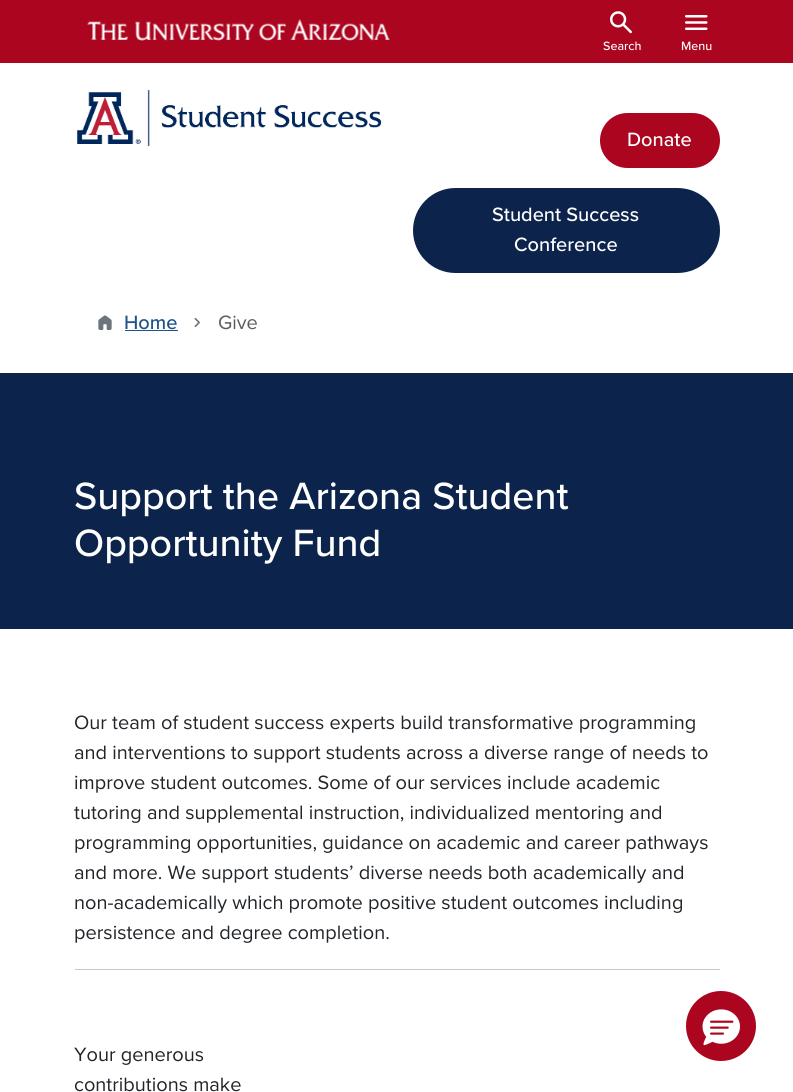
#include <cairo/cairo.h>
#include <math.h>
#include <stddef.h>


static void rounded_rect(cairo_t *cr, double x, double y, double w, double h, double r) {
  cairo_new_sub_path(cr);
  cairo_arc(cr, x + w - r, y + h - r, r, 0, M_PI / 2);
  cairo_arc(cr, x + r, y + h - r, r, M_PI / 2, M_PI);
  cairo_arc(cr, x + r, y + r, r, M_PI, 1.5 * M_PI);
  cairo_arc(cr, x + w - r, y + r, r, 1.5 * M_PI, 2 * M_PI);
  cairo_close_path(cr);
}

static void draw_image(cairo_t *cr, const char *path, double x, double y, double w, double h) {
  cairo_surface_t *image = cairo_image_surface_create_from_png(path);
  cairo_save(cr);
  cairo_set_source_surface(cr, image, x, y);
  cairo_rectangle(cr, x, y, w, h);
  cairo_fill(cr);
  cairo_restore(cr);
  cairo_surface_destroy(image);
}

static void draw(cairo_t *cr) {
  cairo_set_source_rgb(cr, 1, 1, 1);
  cairo_paint(cr);
  cairo_set_source_rgb(cr, 171 / 255.0, 5 / 255.0, 32 / 255.0);
  cairo_rectangle(cr, 0, 0, 793, 63);
  cairo_fill(cr);
  draw_image(cr, "images/1.png", 87, 19, 303, 22);
  draw_image(cr, "images/2.png", 610, 11, 22, 23);
  draw_image(cr, "images/3.png", 685, 15, 23, 15);
  draw_image(cr, "images/4.png", 76, 90, 306, 57);
  rounded_rect(cr, 601.5, 114.5, 117, 52, 26);
  cairo_fill_preserve(cr);
  cairo_set_line_width(cr, 3);
  cairo_stroke(cr);
  cairo_set_source_rgb(cr, 12 / 255.0, 35 / 255.0, 75 / 255.0);
  rounded_rect(cr, 414.5, 189.5, 304, 82, 41);
  cairo_fill_preserve(cr);
  cairo_stroke(cr);
  draw_image(cr, "images/5.png", 98, 315, 14, 15);
  cairo_set_source_rgb(cr, 30 / 255.0, 82 / 255.0, 136 / 255.0);
  cairo_rectangle(cr, 125, 330, 53, 1);
  cairo_fill(cr);
  draw_image(cr, "images/6.png", 194, 317, 6, 11);
  cairo_set_source_rgb(cr, 12 / 255.0, 35 / 255.0, 75 / 255.0);
  cairo_rectangle(cr, 0, 373, 793, 256);
  cairo_fill(cr);
  cairo_set_source_rgb(cr, 200 / 255.0, 201 / 255.0, 202 / 255.0);
  cairo_rectangle(cr, 75, 969, 645, 1);
  cairo_fill(cr);
  cairo_set_source_rgb(cr, 171 / 255.0, 5 / 255.0, 32 / 255.0);
  cairo_arc(cr, 721, 1026, 35, 0, 2 * M_PI);
  cairo_fill(cr);
  draw_image(cr, "images/7.png", 702, 1009, 38, 37);
  cairo_select_font_face(cr, "Proxima Nova Medium", CAIRO_FONT_SLANT_NORMAL, CAIRO_FONT_WEIGHT_NORMAL);
  cairo_set_font_size(cr, 12.5);
  cairo_set_source_rgb(cr, 1, 1, 1);
  cairo_move_to(cr, 603, 50);
  cairo_show_text(cr, "Search");
  cairo_move_to(cr, 681, 50);
  cairo_show_text(cr, "Menu");
  cairo_set_font_size(cr, 20);
  cairo_move_to(cr, 627, 146);
  cairo_show_text(cr, "Donate");
  cairo_move_to(cr, 492, 221);
  cairo_show_text(cr, "Student Success");
  cairo_move_to(cr, 514, 251);
  cairo_show_text(cr, "Conference");
  cairo_set_source_rgb(cr, 30 / 255.0, 82 / 255.0, 136 / 255.0);
  cairo_move_to(cr, 124, 329);
  cairo_show_text(cr, "Home");
  cairo_select_font_face(cr, "Proxima Nova", CAIRO_FONT_SLANT_NORMAL, CAIRO_FONT_WEIGHT_NORMAL);
  cairo_set_source_rgb(cr, 89 / 255.0, 92 / 255.0, 95 / 255.0);
  cairo_move_to(cr, 218, 329);
  cairo_show_text(cr, "Give");
  cairo_select_font_face(cr, "Proxima Nova Medium", CAIRO_FONT_SLANT_NORMAL, CAIRO_FONT_WEIGHT_NORMAL);
  cairo_set_font_size(cr, 39.4);
  cairo_set_source_rgb(cr, 1, 1, 1);
  cairo_move_to(cr, 74, 509);
  cairo_show_text(cr, "Support the Arizona Student");
  cairo_move_to(cr, 74, 556);
  cairo_show_text(cr, "Opportunity Fund");
  cairo_select_font_face(cr, "Proxima Nova", CAIRO_FONT_SLANT_NORMAL, CAIRO_FONT_WEIGHT_NORMAL);
  cairo_set_font_size(cr, 20);
  cairo_set_source_rgb(cr, 33 / 255.0, 37 / 255.0, 41 / 255.0);
  cairo_move_to(cr, 74, 729);
  cairo_show_text(cr, "Our team of student success experts build transformative programming");
  cairo_move_to(cr, 74, 759);
  cairo_show_text(cr, "and interventions to support students across a diverse range of needs to");
  cairo_move_to(cr, 74, 789);
  cairo_show_text(cr, "improve student outcomes. Some of our services include academic");
  cairo_move_to(cr, 74, 819);
  cairo_show_text(cr, "tutoring and supplemental instruction, individualized mentoring and");
  cairo_move_to(cr, 74, 849);
  cairo_show_text(cr, "programming opportunities, guidance on academic and career pathways");
  cairo_move_to(cr, 74, 879);
  cairo_show_text(cr, "and more. We support students’ diverse needs both academically and");
  cairo_move_to(cr, 74, 909);
  cairo_show_text(cr, "non-academically which promote positive student outcomes including");
  cairo_move_to(cr, 74, 939);
  cairo_show_text(cr, "persistence and degree completion.");
  cairo_move_to(cr, 74, 1061);
  cairo_show_text(cr, "Your generous");
  cairo_move_to(cr, 74, 1091);
  cairo_show_text(cr, "contributions make");
}

int main(void) {
  cairo_surface_t *surface = cairo_image_surface_create(CAIRO_FORMAT_RGB24, 793, 1092);
  cairo_t *cr = cairo_create(surface);
  cairo_font_options_t *options = cairo_font_options_create();
  cairo_font_options_set_hint_metrics(options, CAIRO_HINT_METRICS_OFF);
  cairo_font_options_set_hint_style(options, CAIRO_HINT_STYLE_NONE);
  cairo_set_font_options(cr, options);
  cairo_set_miter_limit(cr, 4);
  draw(cr);
  cairo_surface_write_to_png(surface, "out.png");
  cairo_font_options_destroy(options);
  cairo_destroy(cr);
  cairo_surface_destroy(surface);
  return 0;
}
